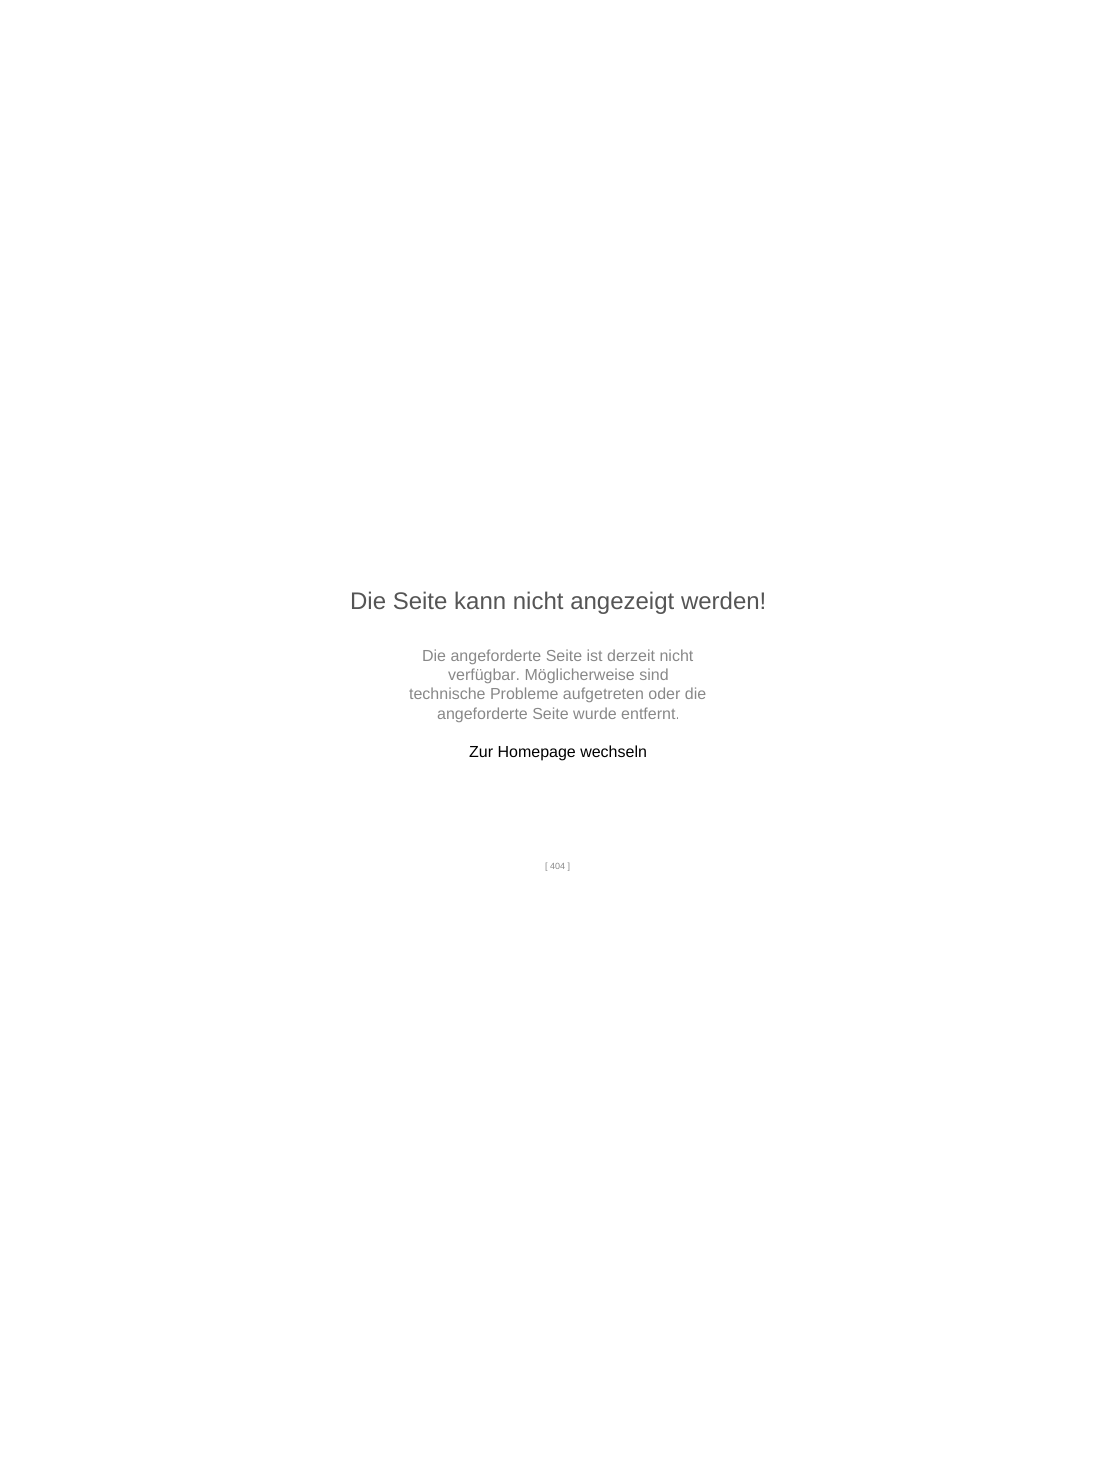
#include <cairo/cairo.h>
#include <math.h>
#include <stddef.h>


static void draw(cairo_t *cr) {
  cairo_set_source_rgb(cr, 1, 1, 1);
  cairo_paint(cr);
  cairo_select_font_face(cr, "Liberation Sans", CAIRO_FONT_SLANT_NORMAL, CAIRO_FONT_WEIGHT_NORMAL);
  cairo_set_font_size(cr, 24);
  cairo_set_source_rgb(cr, 85 / 255.0, 85 / 255.0, 85 / 255.0);
  cairo_move_to(cr, 350, 609);
  cairo_show_text(cr, "Die Seite kann nicht angezeigt werden!");
  cairo_set_font_size(cr, 16);
  cairo_set_source_rgb(cr, 136 / 255.0, 136 / 255.0, 136 / 255.0);
  cairo_move_to(cr, 422, 661);
  cairo_show_text(cr, "Die angeforderte Seite ist derzeit nicht");
  cairo_move_to(cr, 448, 680);
  cairo_show_text(cr, "verfügbar. Möglicherweise sind");
  cairo_move_to(cr, 409, 699);
  cairo_show_text(cr, "technische Probleme aufgetreten oder die");
  cairo_move_to(cr, 437, 719);
  cairo_show_text(cr, "angeforderte Seite wurde entfernt.");
  cairo_set_source_rgb(cr, 0, 0, 0);
  cairo_move_to(cr, 469, 757);
  cairo_show_text(cr, "Zur Homepage wechseln");
  cairo_set_font_size(cr, 9);
  cairo_set_source_rgb(cr, 136 / 255.0, 136 / 255.0, 136 / 255.0);
  cairo_move_to(cr, 545, 869);
  cairo_show_text(cr, "[ 404 ]");
}

int main(void) {
  cairo_surface_t *surface = cairo_image_surface_create(CAIRO_FORMAT_RGB24, 1116, 1459);
  cairo_t *cr = cairo_create(surface);
  cairo_font_options_t *options = cairo_font_options_create();
  cairo_font_options_set_hint_metrics(options, CAIRO_HINT_METRICS_OFF);
  cairo_font_options_set_hint_style(options, CAIRO_HINT_STYLE_NONE);
  cairo_set_font_options(cr, options);
  cairo_set_miter_limit(cr, 4);
  draw(cr);
  cairo_surface_write_to_png(surface, "out.png");
  cairo_font_options_destroy(options);
  cairo_destroy(cr);
  cairo_surface_destroy(surface);
  return 0;
}
